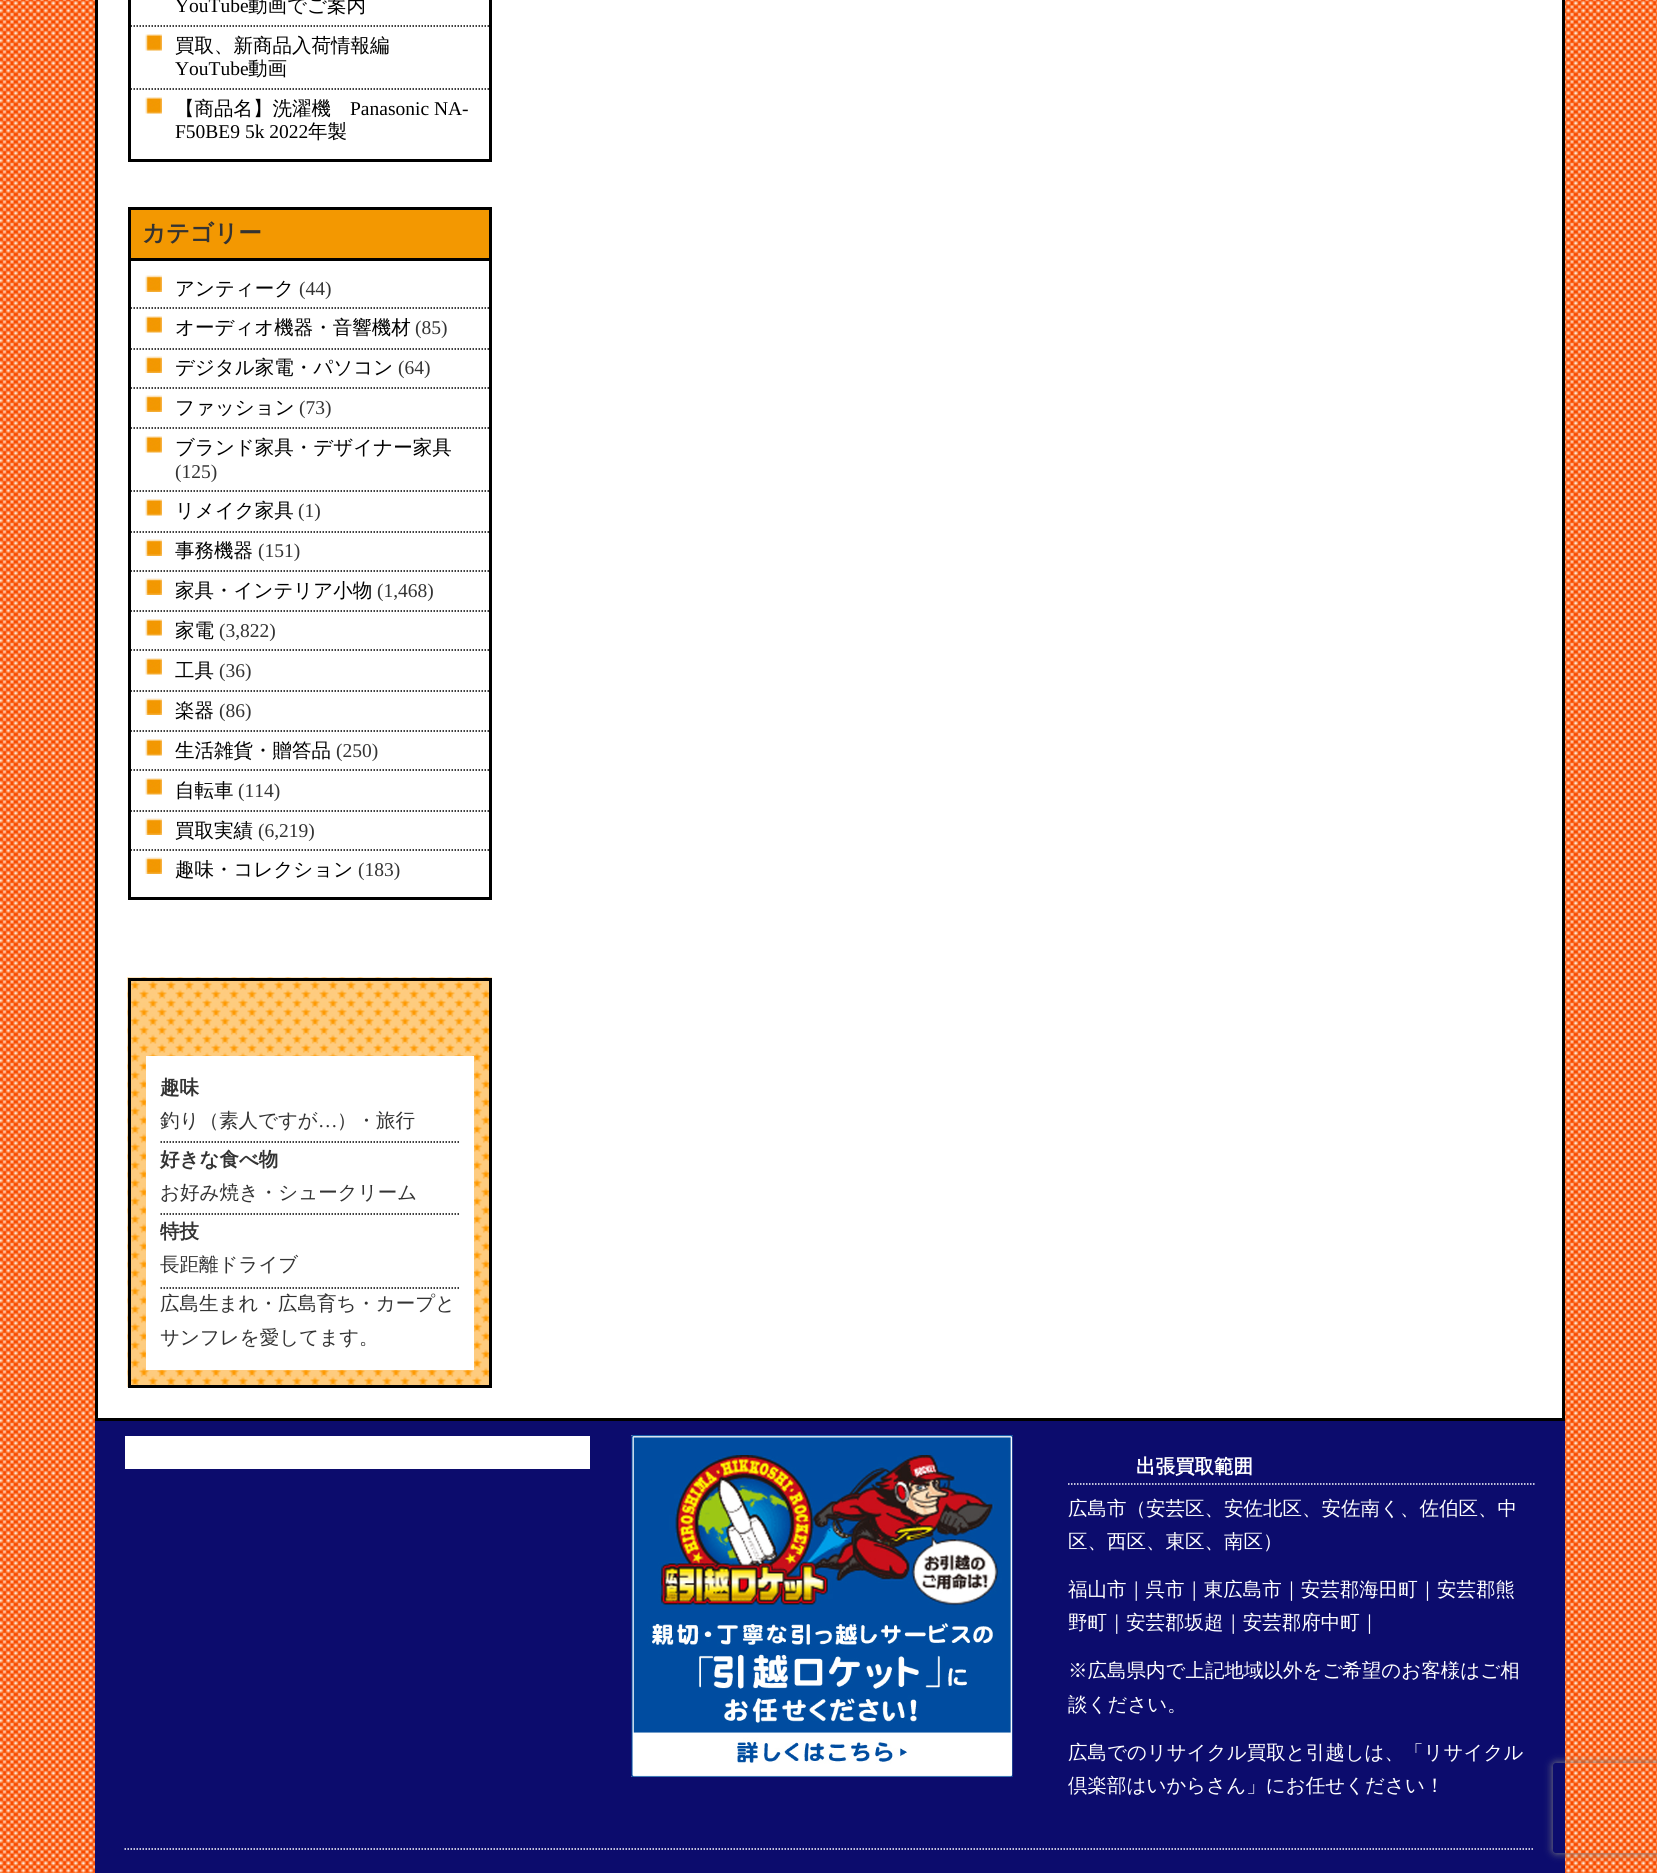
#include <cairo/cairo.h>
#include <math.h>
#include <stddef.h>


static void rounded_rect(cairo_t *cr, double x, double y, double w, double h, double r) {
  cairo_new_sub_path(cr);
  cairo_arc(cr, x + w - r, y + h - r, r, 0, M_PI / 2);
  cairo_arc(cr, x + r, y + h - r, r, M_PI / 2, M_PI);
  cairo_arc(cr, x + r, y + r, r, M_PI, 1.5 * M_PI);
  cairo_arc(cr, x + w - r, y + r, r, 1.5 * M_PI, 2 * M_PI);
  cairo_close_path(cr);
}

static void draw_shadow(cairo_t *cr, double x, double y, double w, double h, double r, double blur, double alpha) {
  cairo_push_group_with_content(cr, CAIRO_CONTENT_ALPHA);
  cairo_set_operator(cr, CAIRO_OPERATOR_SOURCE);
  for (int i = 15; i >= -15 && fmin(w, h) + blur * i / 3 > 0; i -= 2) {
    double e = blur * i / 6;
    cairo_set_source_rgba(cr, 0, 0, 0, alpha * erfc((i - 1) / 8.5) / 2);
    rounded_rect(cr, x - e, y - e, w + 2 * e, h + 2 * e, fmax(0, fmin(r + e + blur * .6, fmin(w, h) / 2 + e)));
    cairo_fill(cr);
  }
  cairo_pattern_t *soft = cairo_pop_group(cr);
  cairo_mask(cr, soft);
  cairo_pattern_destroy(soft);
}

static void draw_image(cairo_t *cr, const char *path, double x, double y, double w, double h) {
  cairo_surface_t *image = cairo_image_surface_create_from_png(path);
  cairo_save(cr);
  cairo_set_source_surface(cr, image, x, y);
  cairo_rectangle(cr, x, y, w, h);
  cairo_fill(cr);
  cairo_restore(cr);
  cairo_surface_destroy(image);
}

static void draw(cairo_t *cr) {
  cairo_set_source_rgb(cr, 1, 1, 1);
  cairo_paint(cr);
  draw_image(cr, "images/1.png", 0, 0, 1657, 1873);
  cairo_set_source_rgb(cr, 1, 1, 1);
  cairo_rectangle(cr, 96.5, -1.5, 1467, 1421);
  cairo_fill_preserve(cr);
  cairo_set_source_rgb(cr, 0, 0, 0);
  cairo_set_line_width(cr, 3);
  cairo_stroke(cr);
  cairo_rectangle(cr, 489, 0, 3, 162);
  cairo_fill(cr);
  cairo_rectangle(cr, 128, 159, 364, 3);
  cairo_fill(cr);
  cairo_rectangle(cr, 128, 0, 3, 162);
  cairo_fill(cr);
  cairo_new_path(cr);
  cairo_move_to(cr, 130.5, 26);
  cairo_line_to(cr, 489, 26);
  cairo_set_line_width(cr, 1.5);
  cairo_set_dash(cr, (double[]){1.5, 1.5}, 2, 0);
  cairo_stroke(cr);
  draw_image(cr, "images/2.png", 145, 34, 17, 17);
  cairo_new_path(cr);
  cairo_move_to(cr, 130.5, 89);
  cairo_line_to(cr, 489, 89);
  cairo_stroke(cr);
  draw_image(cr, "images/2.png", 145, 97, 17, 17);
  cairo_set_source_rgb(cr, 243 / 255.0, 152 / 255.0, 1 / 255.0);
  cairo_rectangle(cr, 129.5, 208.5, 361, 51);
  cairo_fill_preserve(cr);
  cairo_set_source_rgb(cr, 0, 0, 0);
  cairo_set_line_width(cr, 3);
  cairo_set_dash(cr, NULL, 0, 0);
  cairo_stroke(cr);
  cairo_rectangle(cr, 489, 261, 3, 639);
  cairo_fill(cr);
  cairo_rectangle(cr, 128, 897, 364, 3);
  cairo_fill(cr);
  cairo_rectangle(cr, 128, 261, 3, 639);
  cairo_fill(cr);
  draw_image(cr, "images/3.png", 145, 275, 17, 17);
  cairo_new_path(cr);
  cairo_move_to(cr, 130.5, 308);
  cairo_line_to(cr, 489, 308);
  cairo_set_line_width(cr, 1.5);
  cairo_set_dash(cr, (double[]){1.5, 1.5}, 2, 0);
  cairo_stroke(cr);
  draw_image(cr, "images/2.png", 145, 316, 17, 17);
  cairo_new_path(cr);
  cairo_move_to(cr, 130.5, 349);
  cairo_line_to(cr, 489, 349);
  cairo_stroke(cr);
  draw_image(cr, "images/3.png", 145, 356, 17, 17);
  cairo_new_path(cr);
  cairo_move_to(cr, 130.5, 388);
  cairo_line_to(cr, 489, 388);
  cairo_stroke(cr);
  draw_image(cr, "images/3.png", 145, 395, 17, 17);
  cairo_new_path(cr);
  cairo_move_to(cr, 130.5, 428);
  cairo_line_to(cr, 489, 428);
  cairo_stroke(cr);
  draw_image(cr, "images/2.png", 145, 436, 17, 17);
  cairo_new_path(cr);
  cairo_move_to(cr, 130.5, 491);
  cairo_line_to(cr, 489, 491);
  cairo_stroke(cr);
  draw_image(cr, "images/2.png", 145, 499, 17, 17);
  cairo_new_path(cr);
  cairo_move_to(cr, 130.5, 532);
  cairo_line_to(cr, 489, 532);
  cairo_stroke(cr);
  draw_image(cr, "images/3.png", 145, 539, 17, 17);
  cairo_new_path(cr);
  cairo_move_to(cr, 130.5, 571);
  cairo_line_to(cr, 489, 571);
  cairo_stroke(cr);
  draw_image(cr, "images/3.png", 145, 578, 17, 17);
  cairo_new_path(cr);
  cairo_move_to(cr, 130.5, 611);
  cairo_line_to(cr, 489, 611);
  cairo_stroke(cr);
  draw_image(cr, "images/2.png", 145, 619, 17, 17);
  cairo_new_path(cr);
  cairo_move_to(cr, 130.5, 650);
  cairo_line_to(cr, 489, 650);
  cairo_stroke(cr);
  draw_image(cr, "images/2.png", 145, 658, 17, 17);
  cairo_new_path(cr);
  cairo_move_to(cr, 130.5, 691);
  cairo_line_to(cr, 489, 691);
  cairo_stroke(cr);
  draw_image(cr, "images/3.png", 145, 698, 17, 17);
  cairo_new_path(cr);
  cairo_move_to(cr, 130.5, 731);
  cairo_line_to(cr, 489, 731);
  cairo_stroke(cr);
  draw_image(cr, "images/2.png", 145, 739, 17, 17);
  cairo_new_path(cr);
  cairo_move_to(cr, 130.5, 770);
  cairo_line_to(cr, 489, 770);
  cairo_stroke(cr);
  draw_image(cr, "images/2.png", 145, 778, 17, 17);
  cairo_new_path(cr);
  cairo_move_to(cr, 130.5, 811);
  cairo_line_to(cr, 489, 811);
  cairo_stroke(cr);
  draw_image(cr, "images/3.png", 145, 818, 17, 17);
  cairo_new_path(cr);
  cairo_move_to(cr, 130.5, 850);
  cairo_line_to(cr, 489, 850);
  cairo_stroke(cr);
  draw_image(cr, "images/3.png", 145, 857, 17, 17);
  draw_image(cr, "images/4.png", 127, 977, 365, 410);
  cairo_rectangle(cr, 129.5, 979.5, 361, 407);
  cairo_set_line_width(cr, 3);
  cairo_set_dash(cr, NULL, 0, 0);
  cairo_stroke(cr);
  cairo_set_source_rgb(cr, 1, 1, 1);
  cairo_rectangle(cr, 146, 1056, 328, 314);
  cairo_fill(cr);
  cairo_new_path(cr);
  cairo_move_to(cr, 160.5, 1142);
  cairo_line_to(cr, 459, 1142);
  cairo_set_source_rgb(cr, 0, 0, 0);
  cairo_set_line_width(cr, 1.5);
  cairo_set_dash(cr, (double[]){1.5, 1.5}, 2, 0);
  cairo_stroke(cr);
  cairo_new_path(cr);
  cairo_move_to(cr, 160.5, 1214);
  cairo_line_to(cr, 459, 1214);
  cairo_stroke(cr);
  cairo_new_path(cr);
  cairo_move_to(cr, 160.5, 1288);
  cairo_line_to(cr, 459, 1288);
  cairo_stroke(cr);
  cairo_set_source_rgb(cr, 12 / 255.0, 12 / 255.0, 109 / 255.0);
  cairo_rectangle(cr, 95, 1421, 1470, 452);
  cairo_fill(cr);
  cairo_set_source_rgb(cr, 1, 1, 1);
  cairo_rectangle(cr, 125, 1436, 465, 33);
  cairo_fill(cr);
  draw_image(cr, "images/5.png", 631, 1435, 382, 342);
  cairo_new_path(cr);
  cairo_move_to(cr, 1068, 1484);
  cairo_line_to(cr, 1534.5, 1484);
  cairo_stroke(cr);
  cairo_new_path(cr);
  cairo_move_to(cr, 124.5, 1849);
  cairo_line_to(cr, 1534.5, 1849);
  cairo_stroke(cr);
  cairo_save(cr);
  cairo_set_fill_rule(cr, CAIRO_FILL_RULE_EVEN_ODD);
  cairo_new_path(cr);
  cairo_move_to(cr, 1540, 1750);
  cairo_line_to(cr, 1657, 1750);
  cairo_line_to(cr, 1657, 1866);
  cairo_line_to(cr, 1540, 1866);
  cairo_close_path(cr);
  cairo_move_to(cr, 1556, 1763);
  cairo_line_to(cr, 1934, 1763);
  cairo_curve_to(cr, 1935.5, 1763, 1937, 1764.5, 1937, 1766);
  cairo_line_to(cr, 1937, 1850);
  cairo_curve_to(cr, 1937, 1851.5, 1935.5, 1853, 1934, 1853);
  cairo_line_to(cr, 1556, 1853);
  cairo_curve_to(cr, 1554.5, 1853, 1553, 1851.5, 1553, 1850);
  cairo_line_to(cr, 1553, 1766);
  cairo_curve_to(cr, 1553, 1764.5, 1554.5, 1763, 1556, 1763);
  cairo_close_path(cr);
  cairo_clip(cr);
  cairo_set_source_rgb(cr, 128 / 255.0, 128 / 255.0, 128 / 255.0);
  draw_shadow(cr, 1553, 1763, 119, 90, 3, 4, 1);
  cairo_restore(cr);
  cairo_select_font_face(cr, "Liberation Serif", CAIRO_FONT_SLANT_NORMAL, CAIRO_FONT_WEIGHT_NORMAL);
  cairo_set_font_size(cr, 19.5);
  cairo_set_source_rgb(cr, 0, 0, 0);
  cairo_move_to(cr, 175, 12);
  cairo_show_text(cr, "YouTube");
  cairo_select_font_face(cr, "WenQuanYi Zen Hei Medium", CAIRO_FONT_SLANT_NORMAL, CAIRO_FONT_WEIGHT_NORMAL);
  cairo_move_to(cr, 248, 12);
  cairo_show_text(cr, "動画でご案内");
  cairo_move_to(cr, 175, 52);
  cairo_show_text(cr, "買取、新商品入荷情報編");
  cairo_select_font_face(cr, "Liberation Serif", CAIRO_FONT_SLANT_NORMAL, CAIRO_FONT_WEIGHT_NORMAL);
  cairo_move_to(cr, 175, 75);
  cairo_show_text(cr, "YouTube");
  cairo_select_font_face(cr, "WenQuanYi Zen Hei Medium", CAIRO_FONT_SLANT_NORMAL, CAIRO_FONT_WEIGHT_NORMAL);
  cairo_move_to(cr, 248, 75);
  cairo_show_text(cr, "動画");
  cairo_move_to(cr, 175, 115);
  cairo_show_text(cr, "【商品名】洗濯機");
  cairo_select_font_face(cr, "Liberation Serif", CAIRO_FONT_SLANT_NORMAL, CAIRO_FONT_WEIGHT_NORMAL);
  cairo_move_to(cr, 350, 115);
  cairo_show_text(cr, "Panasonic NA-");
  cairo_move_to(cr, 175, 138);
  cairo_show_text(cr, "F50BE9 5k 2022");
  cairo_select_font_face(cr, "WenQuanYi Zen Hei Medium", CAIRO_FONT_SLANT_NORMAL, CAIRO_FONT_WEIGHT_NORMAL);
  cairo_move_to(cr, 308, 138);
  cairo_show_text(cr, "年製");
  cairo_select_font_face(cr, "WenQuanYi Zen Hei", CAIRO_FONT_SLANT_NORMAL, CAIRO_FONT_WEIGHT_BOLD);
  cairo_set_font_size(cr, 23.5);
  cairo_set_source_rgb(cr, 51 / 255.0, 51 / 255.0, 51 / 255.0);
  cairo_move_to(cr, 142, 241);
  cairo_show_text(cr, "カテゴリー");
  cairo_select_font_face(cr, "WenQuanYi Zen Hei Medium", CAIRO_FONT_SLANT_NORMAL, CAIRO_FONT_WEIGHT_NORMAL);
  cairo_set_font_size(cr, 19.5);
  cairo_set_source_rgb(cr, 0, 0, 0);
  cairo_move_to(cr, 175, 295);
  cairo_show_text(cr, "アンティーク");
  cairo_select_font_face(cr, "Liberation Serif", CAIRO_FONT_SLANT_NORMAL, CAIRO_FONT_WEIGHT_NORMAL);
  cairo_set_source_rgb(cr, 51 / 255.0, 51 / 255.0, 51 / 255.0);
  cairo_move_to(cr, 299, 295);
  cairo_show_text(cr, "(44)");
  cairo_select_font_face(cr, "WenQuanYi Zen Hei Medium", CAIRO_FONT_SLANT_NORMAL, CAIRO_FONT_WEIGHT_NORMAL);
  cairo_set_source_rgb(cr, 0, 0, 0);
  cairo_move_to(cr, 175, 334);
  cairo_show_text(cr, "オーディオ機器・音響機材");
  cairo_select_font_face(cr, "Liberation Serif", CAIRO_FONT_SLANT_NORMAL, CAIRO_FONT_WEIGHT_NORMAL);
  cairo_set_source_rgb(cr, 51 / 255.0, 51 / 255.0, 51 / 255.0);
  cairo_move_to(cr, 415, 334);
  cairo_show_text(cr, "(85)");
  cairo_select_font_face(cr, "WenQuanYi Zen Hei Medium", CAIRO_FONT_SLANT_NORMAL, CAIRO_FONT_WEIGHT_NORMAL);
  cairo_set_source_rgb(cr, 0, 0, 0);
  cairo_move_to(cr, 175, 374);
  cairo_show_text(cr, "デジタル家電・パソコン");
  cairo_select_font_face(cr, "Liberation Serif", CAIRO_FONT_SLANT_NORMAL, CAIRO_FONT_WEIGHT_NORMAL);
  cairo_set_source_rgb(cr, 51 / 255.0, 51 / 255.0, 51 / 255.0);
  cairo_move_to(cr, 398, 374);
  cairo_show_text(cr, "(64)");
  cairo_select_font_face(cr, "WenQuanYi Zen Hei Medium", CAIRO_FONT_SLANT_NORMAL, CAIRO_FONT_WEIGHT_NORMAL);
  cairo_set_source_rgb(cr, 0, 0, 0);
  cairo_move_to(cr, 175, 414);
  cairo_show_text(cr, "ファッション");
  cairo_select_font_face(cr, "Liberation Serif", CAIRO_FONT_SLANT_NORMAL, CAIRO_FONT_WEIGHT_NORMAL);
  cairo_set_source_rgb(cr, 51 / 255.0, 51 / 255.0, 51 / 255.0);
  cairo_move_to(cr, 299, 414);
  cairo_show_text(cr, "(73)");
  cairo_select_font_face(cr, "WenQuanYi Zen Hei Medium", CAIRO_FONT_SLANT_NORMAL, CAIRO_FONT_WEIGHT_NORMAL);
  cairo_set_source_rgb(cr, 0, 0, 0);
  cairo_move_to(cr, 175, 454);
  cairo_show_text(cr, "ブランド家具・デザイナー家具");
  cairo_select_font_face(cr, "Liberation Serif", CAIRO_FONT_SLANT_NORMAL, CAIRO_FONT_WEIGHT_NORMAL);
  cairo_set_source_rgb(cr, 51 / 255.0, 51 / 255.0, 51 / 255.0);
  cairo_move_to(cr, 175, 478);
  cairo_show_text(cr, "(125)");
  cairo_select_font_face(cr, "WenQuanYi Zen Hei Medium", CAIRO_FONT_SLANT_NORMAL, CAIRO_FONT_WEIGHT_NORMAL);
  cairo_set_source_rgb(cr, 0, 0, 0);
  cairo_move_to(cr, 175, 517);
  cairo_show_text(cr, "リメイク家具");
  cairo_select_font_face(cr, "Liberation Serif", CAIRO_FONT_SLANT_NORMAL, CAIRO_FONT_WEIGHT_NORMAL);
  cairo_set_source_rgb(cr, 51 / 255.0, 51 / 255.0, 51 / 255.0);
  cairo_move_to(cr, 298, 517);
  cairo_show_text(cr, "(1)");
  cairo_select_font_face(cr, "WenQuanYi Zen Hei Medium", CAIRO_FONT_SLANT_NORMAL, CAIRO_FONT_WEIGHT_NORMAL);
  cairo_set_source_rgb(cr, 0, 0, 0);
  cairo_move_to(cr, 175, 557);
  cairo_show_text(cr, "事務機器");
  cairo_select_font_face(cr, "Liberation Serif", CAIRO_FONT_SLANT_NORMAL, CAIRO_FONT_WEIGHT_NORMAL);
  cairo_set_source_rgb(cr, 51 / 255.0, 51 / 255.0, 51 / 255.0);
  cairo_move_to(cr, 258, 557);
  cairo_show_text(cr, "(151)");
  cairo_select_font_face(cr, "WenQuanYi Zen Hei Medium", CAIRO_FONT_SLANT_NORMAL, CAIRO_FONT_WEIGHT_NORMAL);
  cairo_set_source_rgb(cr, 0, 0, 0);
  cairo_move_to(cr, 175, 597);
  cairo_show_text(cr, "家具・インテリア小物");
  cairo_select_font_face(cr, "Liberation Serif", CAIRO_FONT_SLANT_NORMAL, CAIRO_FONT_WEIGHT_NORMAL);
  cairo_set_source_rgb(cr, 51 / 255.0, 51 / 255.0, 51 / 255.0);
  cairo_move_to(cr, 377, 597);
  cairo_show_text(cr, "(1,468)");
  cairo_select_font_face(cr, "WenQuanYi Zen Hei Medium", CAIRO_FONT_SLANT_NORMAL, CAIRO_FONT_WEIGHT_NORMAL);
  cairo_set_source_rgb(cr, 0, 0, 0);
  cairo_move_to(cr, 175, 637);
  cairo_show_text(cr, "家電");
  cairo_select_font_face(cr, "Liberation Serif", CAIRO_FONT_SLANT_NORMAL, CAIRO_FONT_WEIGHT_NORMAL);
  cairo_set_source_rgb(cr, 51 / 255.0, 51 / 255.0, 51 / 255.0);
  cairo_move_to(cr, 219, 637);
  cairo_show_text(cr, "(3,822)");
  cairo_select_font_face(cr, "WenQuanYi Zen Hei Medium", CAIRO_FONT_SLANT_NORMAL, CAIRO_FONT_WEIGHT_NORMAL);
  cairo_set_source_rgb(cr, 0, 0, 0);
  cairo_move_to(cr, 175, 677);
  cairo_show_text(cr, "工具");
  cairo_select_font_face(cr, "Liberation Serif", CAIRO_FONT_SLANT_NORMAL, CAIRO_FONT_WEIGHT_NORMAL);
  cairo_set_source_rgb(cr, 51 / 255.0, 51 / 255.0, 51 / 255.0);
  cairo_move_to(cr, 219, 677);
  cairo_show_text(cr, "(36)");
  cairo_select_font_face(cr, "WenQuanYi Zen Hei Medium", CAIRO_FONT_SLANT_NORMAL, CAIRO_FONT_WEIGHT_NORMAL);
  cairo_set_source_rgb(cr, 0, 0, 0);
  cairo_move_to(cr, 175, 717);
  cairo_show_text(cr, "楽器");
  cairo_select_font_face(cr, "Liberation Serif", CAIRO_FONT_SLANT_NORMAL, CAIRO_FONT_WEIGHT_NORMAL);
  cairo_set_source_rgb(cr, 51 / 255.0, 51 / 255.0, 51 / 255.0);
  cairo_move_to(cr, 219, 717);
  cairo_show_text(cr, "(86)");
  cairo_select_font_face(cr, "WenQuanYi Zen Hei Medium", CAIRO_FONT_SLANT_NORMAL, CAIRO_FONT_WEIGHT_NORMAL);
  cairo_set_source_rgb(cr, 0, 0, 0);
  cairo_move_to(cr, 175, 757);
  cairo_show_text(cr, "生活雑貨・贈答品");
  cairo_select_font_face(cr, "Liberation Serif", CAIRO_FONT_SLANT_NORMAL, CAIRO_FONT_WEIGHT_NORMAL);
  cairo_set_source_rgb(cr, 51 / 255.0, 51 / 255.0, 51 / 255.0);
  cairo_move_to(cr, 336, 757);
  cairo_show_text(cr, "(250)");
  cairo_select_font_face(cr, "WenQuanYi Zen Hei Medium", CAIRO_FONT_SLANT_NORMAL, CAIRO_FONT_WEIGHT_NORMAL);
  cairo_set_source_rgb(cr, 0, 0, 0);
  cairo_move_to(cr, 175, 797);
  cairo_show_text(cr, "自転車");
  cairo_select_font_face(cr, "Liberation Serif", CAIRO_FONT_SLANT_NORMAL, CAIRO_FONT_WEIGHT_NORMAL);
  cairo_set_source_rgb(cr, 51 / 255.0, 51 / 255.0, 51 / 255.0);
  cairo_move_to(cr, 238, 797);
  cairo_show_text(cr, "(114)");
  cairo_select_font_face(cr, "WenQuanYi Zen Hei Medium", CAIRO_FONT_SLANT_NORMAL, CAIRO_FONT_WEIGHT_NORMAL);
  cairo_set_source_rgb(cr, 0, 0, 0);
  cairo_move_to(cr, 175, 837);
  cairo_show_text(cr, "買取実績");
  cairo_select_font_face(cr, "Liberation Serif", CAIRO_FONT_SLANT_NORMAL, CAIRO_FONT_WEIGHT_NORMAL);
  cairo_set_source_rgb(cr, 51 / 255.0, 51 / 255.0, 51 / 255.0);
  cairo_move_to(cr, 258, 837);
  cairo_show_text(cr, "(6,219)");
  cairo_select_font_face(cr, "WenQuanYi Zen Hei Medium", CAIRO_FONT_SLANT_NORMAL, CAIRO_FONT_WEIGHT_NORMAL);
  cairo_set_source_rgb(cr, 0, 0, 0);
  cairo_move_to(cr, 175, 876);
  cairo_show_text(cr, "趣味・コレクション");
  cairo_select_font_face(cr, "Liberation Serif", CAIRO_FONT_SLANT_NORMAL, CAIRO_FONT_WEIGHT_NORMAL);
  cairo_set_source_rgb(cr, 51 / 255.0, 51 / 255.0, 51 / 255.0);
  cairo_move_to(cr, 358, 876);
  cairo_show_text(cr, "(183)");
  cairo_select_font_face(cr, "WenQuanYi Zen Hei", CAIRO_FONT_SLANT_NORMAL, CAIRO_FONT_WEIGHT_BOLD);
  cairo_move_to(cr, 160, 1094);
  cairo_show_text(cr, "趣味");
  cairo_select_font_face(cr, "WenQuanYi Zen Hei Medium", CAIRO_FONT_SLANT_NORMAL, CAIRO_FONT_WEIGHT_NORMAL);
  cairo_move_to(cr, 160, 1127);
  cairo_show_text(cr, "釣り（素人ですが");
  cairo_select_font_face(cr, "Liberation Serif", CAIRO_FONT_SLANT_NORMAL, CAIRO_FONT_WEIGHT_NORMAL);
  cairo_move_to(cr, 318, 1127);
  cairo_show_text(cr, "…");
  cairo_select_font_face(cr, "WenQuanYi Zen Hei Medium", CAIRO_FONT_SLANT_NORMAL, CAIRO_FONT_WEIGHT_NORMAL);
  cairo_move_to(cr, 337, 1127);
  cairo_show_text(cr, "）・旅行");
  cairo_select_font_face(cr, "WenQuanYi Zen Hei", CAIRO_FONT_SLANT_NORMAL, CAIRO_FONT_WEIGHT_BOLD);
  cairo_move_to(cr, 160, 1166);
  cairo_show_text(cr, "好きな食べ物");
  cairo_select_font_face(cr, "WenQuanYi Zen Hei Medium", CAIRO_FONT_SLANT_NORMAL, CAIRO_FONT_WEIGHT_NORMAL);
  cairo_move_to(cr, 160, 1199);
  cairo_show_text(cr, "お好み焼き・シュークリーム");
  cairo_select_font_face(cr, "WenQuanYi Zen Hei", CAIRO_FONT_SLANT_NORMAL, CAIRO_FONT_WEIGHT_BOLD);
  cairo_move_to(cr, 160, 1238);
  cairo_show_text(cr, "特技");
  cairo_select_font_face(cr, "WenQuanYi Zen Hei Medium", CAIRO_FONT_SLANT_NORMAL, CAIRO_FONT_WEIGHT_NORMAL);
  cairo_move_to(cr, 160, 1271);
  cairo_show_text(cr, "長距離ドライブ");
  cairo_move_to(cr, 160, 1310);
  cairo_show_text(cr, "広島生まれ・広島育ち・カープと");
  cairo_move_to(cr, 160, 1344);
  cairo_show_text(cr, "サンフレを愛してます。");
  cairo_select_font_face(cr, "WenQuanYi Zen Hei", CAIRO_FONT_SLANT_NORMAL, CAIRO_FONT_WEIGHT_BOLD);
  cairo_set_source_rgb(cr, 1, 1, 1);
  cairo_move_to(cr, 1136, 1473);
  cairo_show_text(cr, "出張買取範囲");
  cairo_select_font_face(cr, "WenQuanYi Zen Hei Medium", CAIRO_FONT_SLANT_NORMAL, CAIRO_FONT_WEIGHT_NORMAL);
  cairo_move_to(cr, 1068, 1515);
  cairo_show_text(cr, "広島市（安芸区、安佐北区、安佐南く、佐伯区、中");
  cairo_move_to(cr, 1068, 1548);
  cairo_show_text(cr, "区、西区、東区、南区）");
  cairo_move_to(cr, 1068, 1596);
  cairo_show_text(cr, "福山市｜呉市｜東広島市｜安芸郡海田町｜安芸郡熊");
  cairo_move_to(cr, 1068, 1629);
  cairo_show_text(cr, "野町｜安芸郡坂超｜安芸郡府中町｜");
  cairo_move_to(cr, 1068, 1677);
  cairo_show_text(cr, "※広島県内で上記地域以外をご希望のお客様はご相");
  cairo_move_to(cr, 1068, 1711);
  cairo_show_text(cr, "談ください。");
  cairo_move_to(cr, 1068, 1759);
  cairo_show_text(cr, "広島でのリサイクル買取と引越しは、「リサイクル");
  cairo_move_to(cr, 1068, 1792);
  cairo_show_text(cr, "倶楽部はいからさん」にお任せください！");
}

int main(void) {
  cairo_surface_t *surface = cairo_image_surface_create(CAIRO_FORMAT_RGB24, 1657, 1873);
  cairo_t *cr = cairo_create(surface);
  cairo_font_options_t *options = cairo_font_options_create();
  cairo_font_options_set_hint_metrics(options, CAIRO_HINT_METRICS_OFF);
  cairo_font_options_set_hint_style(options, CAIRO_HINT_STYLE_NONE);
  cairo_set_font_options(cr, options);
  cairo_set_miter_limit(cr, 4);
  draw(cr);
  cairo_surface_write_to_png(surface, "out.png");
  cairo_font_options_destroy(options);
  cairo_destroy(cr);
  cairo_surface_destroy(surface);
  return 0;
}
